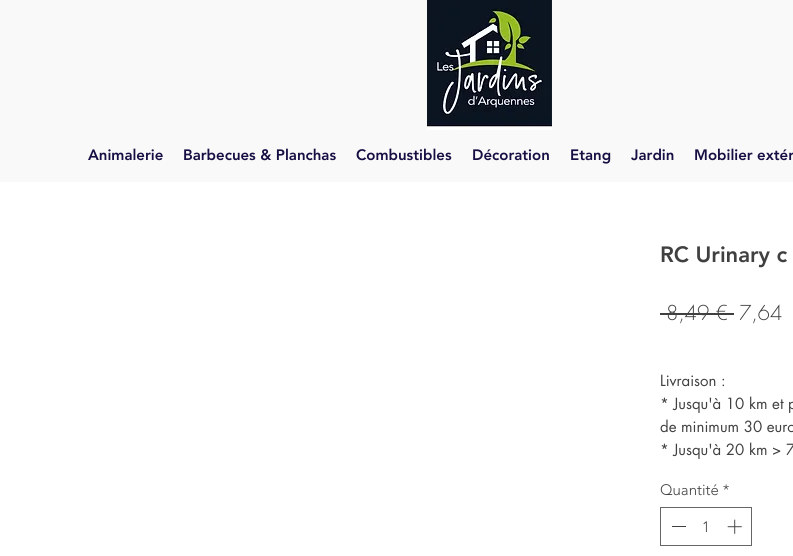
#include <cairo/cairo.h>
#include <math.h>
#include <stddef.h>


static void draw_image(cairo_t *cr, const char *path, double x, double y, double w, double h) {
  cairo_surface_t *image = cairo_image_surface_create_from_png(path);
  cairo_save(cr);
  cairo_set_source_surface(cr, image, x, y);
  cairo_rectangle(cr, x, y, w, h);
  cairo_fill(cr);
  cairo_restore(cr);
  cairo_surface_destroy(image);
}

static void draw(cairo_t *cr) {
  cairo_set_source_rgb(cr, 1, 1, 1);
  cairo_paint(cr);
  cairo_set_source_rgb(cr, 249 / 255.0, 249 / 255.0, 249 / 255.0);
  cairo_rectangle(cr, 0, 0, 793, 182);
  cairo_fill(cr);
  draw_image(cr, "images/1.png", 427, 0, 125, 130);
  cairo_set_source_rgb(cr, 64 / 255.0, 64 / 255.0, 64 / 255.0);
  cairo_rectangle(cr, 660, 313, 74, 2);
  cairo_fill(cr);
  cairo_rectangle(cr, 660.5, 507.5, 91, 38);
  cairo_set_source_rgb(cr, 102 / 255.0, 102 / 255.0, 102 / 255.0);
  cairo_set_line_width(cr, 1);
  cairo_stroke(cr);
  cairo_set_source_rgb(cr, 64 / 255.0, 64 / 255.0, 64 / 255.0);
  cairo_rectangle(cr, 672, 526, 14, 1);
  cairo_fill(cr);
  draw_image(cr, "images/2.png", 727, 519, 15, 15);
  cairo_select_font_face(cr, "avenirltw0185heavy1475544 Black", CAIRO_FONT_SLANT_NORMAL, CAIRO_FONT_WEIGHT_NORMAL);
  cairo_set_font_size(cr, 15);
  cairo_set_source_rgb(cr, 22 / 255.0, 15 / 255.0, 67 / 255.0);
  cairo_move_to(cr, 88, 160);
  cairo_show_text(cr, "Animalerie");
  cairo_move_to(cr, 183, 160);
  cairo_show_text(cr, "Barbecues & Planchas");
  cairo_move_to(cr, 356, 160);
  cairo_show_text(cr, "Combustibles");
  cairo_move_to(cr, 472, 160);
  cairo_show_text(cr, "Décoration");
  cairo_move_to(cr, 570, 160);
  cairo_show_text(cr, "Etang");
  cairo_move_to(cr, 631, 160);
  cairo_show_text(cr, "Jardin");
  cairo_move_to(cr, 694, 160);
  cairo_show_text(cr, "Mobilier extér");
  cairo_set_font_size(cr, 22);
  cairo_set_source_rgb(cr, 64 / 255.0, 64 / 255.0, 64 / 255.0);
  cairo_move_to(cr, 660, 262);
  cairo_show_text(cr, "RC Urinary c");
  cairo_select_font_face(cr, "futura Light", CAIRO_FONT_SLANT_NORMAL, CAIRO_FONT_WEIGHT_NORMAL);
  cairo_set_font_size(cr, 20);
  cairo_move_to(cr, 666, 320);
  cairo_show_text(cr, "8,49 €");
  cairo_move_to(cr, 739, 320);
  cairo_show_text(cr, "7,64");
  cairo_select_font_face(cr, "futura", CAIRO_FONT_SLANT_NORMAL, CAIRO_FONT_WEIGHT_NORMAL);
  cairo_set_font_size(cr, 15);
  cairo_move_to(cr, 660, 386);
  cairo_show_text(cr, "Livraison :");
  cairo_move_to(cr, 660, 409);
  cairo_show_text(cr, "* Jusqu'à 10 km et p");
  cairo_move_to(cr, 660, 432);
  cairo_show_text(cr, "de minimum 30 euro");
  cairo_move_to(cr, 660, 455);
  cairo_show_text(cr, "* Jusqu'à 20 km > 7");
  cairo_select_font_face(cr, "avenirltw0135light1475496 Light", CAIRO_FONT_SLANT_NORMAL, CAIRO_FONT_WEIGHT_NORMAL);
  cairo_move_to(cr, 660, 495);
  cairo_show_text(cr, "Quantité *");
  cairo_move_to(cr, 702, 532);
  cairo_show_text(cr, "1");
}

int main(void) {
  cairo_surface_t *surface = cairo_image_surface_create(CAIRO_FORMAT_RGB24, 793, 556);
  cairo_t *cr = cairo_create(surface);
  cairo_font_options_t *options = cairo_font_options_create();
  cairo_font_options_set_hint_metrics(options, CAIRO_HINT_METRICS_OFF);
  cairo_font_options_set_hint_style(options, CAIRO_HINT_STYLE_NONE);
  cairo_set_font_options(cr, options);
  cairo_set_miter_limit(cr, 4);
  draw(cr);
  cairo_surface_write_to_png(surface, "out.png");
  cairo_font_options_destroy(options);
  cairo_destroy(cr);
  cairo_surface_destroy(surface);
  return 0;
}
